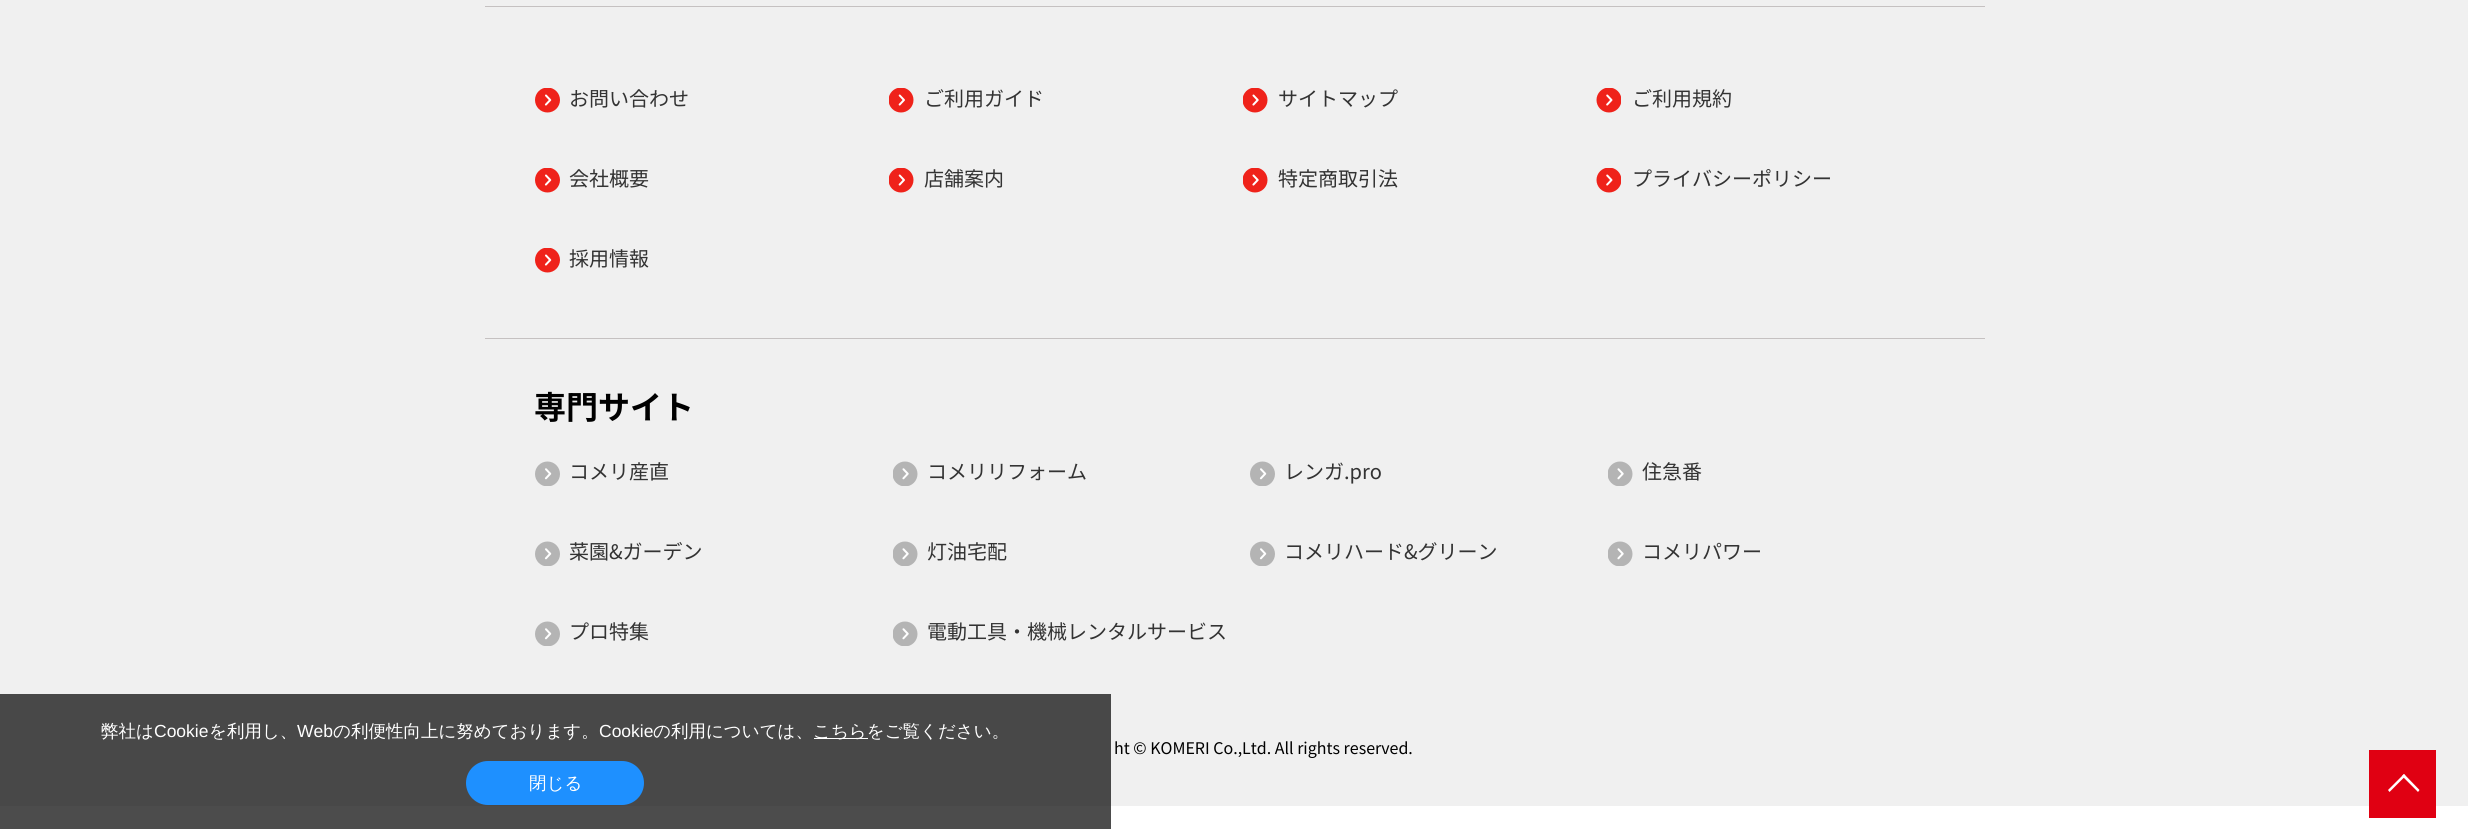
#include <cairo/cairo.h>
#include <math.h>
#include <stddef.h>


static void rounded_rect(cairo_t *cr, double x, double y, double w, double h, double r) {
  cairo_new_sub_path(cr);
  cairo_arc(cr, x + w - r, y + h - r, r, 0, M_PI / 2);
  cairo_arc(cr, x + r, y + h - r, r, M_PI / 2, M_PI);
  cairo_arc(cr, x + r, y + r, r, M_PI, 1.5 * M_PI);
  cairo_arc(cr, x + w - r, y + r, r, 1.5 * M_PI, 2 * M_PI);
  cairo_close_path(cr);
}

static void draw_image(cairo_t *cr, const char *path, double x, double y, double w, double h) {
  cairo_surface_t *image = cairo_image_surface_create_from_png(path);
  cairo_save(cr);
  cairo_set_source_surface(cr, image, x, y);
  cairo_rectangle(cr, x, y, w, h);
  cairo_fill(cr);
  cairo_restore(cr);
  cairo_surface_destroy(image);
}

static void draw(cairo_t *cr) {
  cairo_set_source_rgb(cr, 1, 1, 1);
  cairo_paint(cr);
  cairo_set_source_rgb(cr, 240 / 255.0, 240 / 255.0, 240 / 255.0);
  cairo_rectangle(cr, 0, 0, 2468, 806);
  cairo_fill(cr);
  cairo_set_source_rgb(cr, 197 / 255.0, 193 / 255.0, 193 / 255.0);
  cairo_rectangle(cr, 485, 6, 1500, 1);
  cairo_fill(cr);
  draw_image(cr, "images/1.png", 535, 88, 25, 25);
  draw_image(cr, "images/2.png", 889, 88, 25, 25);
  draw_image(cr, "images/3.png", 1243, 88, 25, 25);
  draw_image(cr, "images/4.png", 1596, 88, 25, 25);
  draw_image(cr, "images/1.png", 535, 168, 25, 25);
  draw_image(cr, "images/2.png", 889, 168, 25, 25);
  draw_image(cr, "images/3.png", 1243, 168, 25, 25);
  draw_image(cr, "images/4.png", 1596, 168, 25, 25);
  draw_image(cr, "images/1.png", 535, 248, 25, 25);
  cairo_rectangle(cr, 485, 338, 1500, 1);
  cairo_fill(cr);
  draw_image(cr, "images/5.png", 535, 461, 25, 25);
  draw_image(cr, "images/6.png", 893, 461, 25, 25);
  draw_image(cr, "images/5.png", 1250, 461, 25, 25);
  draw_image(cr, "images/6.png", 1608, 461, 25, 25);
  draw_image(cr, "images/5.png", 535, 541, 25, 25);
  draw_image(cr, "images/6.png", 893, 541, 25, 25);
  draw_image(cr, "images/5.png", 1250, 541, 25, 25);
  draw_image(cr, "images/6.png", 1608, 541, 25, 25);
  draw_image(cr, "images/5.png", 535, 621, 25, 25);
  draw_image(cr, "images/6.png", 893, 621, 25, 25);
  cairo_set_source_rgb(cr, 224 / 255.0, 0, 18 / 255.0);
  cairo_rectangle(cr, 2369, 750, 67, 68);
  cairo_fill(cr);
  cairo_set_source_rgb(cr, 1, 1, 1);
  cairo_new_path(cr);
  cairo_move_to(cr, 2388, 790);
  cairo_line_to(cr, 2404, 774);
  cairo_line_to(cr, 2405.5, 776);
  cairo_line_to(cr, 2389.5, 792);
  cairo_close_path(cr);
  cairo_fill(cr);
  cairo_new_path(cr);
  cairo_move_to(cr, 2402, 776);
  cairo_line_to(cr, 2404, 774);
  cairo_line_to(cr, 2419.5, 790);
  cairo_line_to(cr, 2418, 792);
  cairo_close_path(cr);
  cairo_fill(cr);
  cairo_set_source_rgba(cr, 0, 0, 0, 0.7);
  cairo_rectangle(cr, 0, 694, 1111, 135);
  cairo_fill(cr);
  cairo_set_source_rgb(cr, 1, 1, 1);
  cairo_rectangle(cr, 814, 738, 54, 1);
  cairo_fill(cr);
  cairo_set_source_rgb(cr, 30 / 255.0, 144 / 255.0, 1);
  rounded_rect(cr, 466, 761, 178, 44, 22);
  cairo_fill(cr);
  cairo_select_font_face(cr, "Noto Sans JP", CAIRO_FONT_SLANT_NORMAL, CAIRO_FONT_WEIGHT_NORMAL);
  cairo_set_font_size(cr, 20);
  cairo_set_source_rgb(cr, 51 / 255.0, 51 / 255.0, 51 / 255.0);
  cairo_move_to(cr, 569, 106);
  cairo_show_text(cr, "お問い合わせ");
  cairo_move_to(cr, 924, 106);
  cairo_show_text(cr, "ご利用ガイド");
  cairo_move_to(cr, 1278, 106);
  cairo_show_text(cr, "サイトマップ");
  cairo_move_to(cr, 1632, 106);
  cairo_show_text(cr, "ご利用規約");
  cairo_move_to(cr, 569, 186);
  cairo_show_text(cr, "会社概要");
  cairo_move_to(cr, 924, 186);
  cairo_show_text(cr, "店舗案内");
  cairo_move_to(cr, 1278, 186);
  cairo_show_text(cr, "特定商取引法");
  cairo_move_to(cr, 1632, 186);
  cairo_show_text(cr, "プライバシーポリシー");
  cairo_move_to(cr, 569, 266);
  cairo_show_text(cr, "採用情報");
  cairo_select_font_face(cr, "Noto Sans JP", CAIRO_FONT_SLANT_NORMAL, CAIRO_FONT_WEIGHT_BOLD);
  cairo_set_font_size(cr, 32);
  cairo_set_source_rgb(cr, 0, 0, 0);
  cairo_move_to(cr, 534, 419);
  cairo_show_text(cr, "専門サイト");
  cairo_select_font_face(cr, "Noto Sans JP", CAIRO_FONT_SLANT_NORMAL, CAIRO_FONT_WEIGHT_NORMAL);
  cairo_set_font_size(cr, 20);
  cairo_set_source_rgb(cr, 51 / 255.0, 51 / 255.0, 51 / 255.0);
  cairo_move_to(cr, 569, 479);
  cairo_show_text(cr, "コメリ産直");
  cairo_move_to(cr, 927, 479);
  cairo_show_text(cr, "コメリリフォーム");
  cairo_move_to(cr, 1284, 479);
  cairo_show_text(cr, "レンガ.pro");
  cairo_move_to(cr, 1642, 479);
  cairo_show_text(cr, "住急番");
  cairo_move_to(cr, 569, 559);
  cairo_show_text(cr, "菜園&ガーデン");
  cairo_move_to(cr, 927, 559);
  cairo_show_text(cr, "灯油宅配");
  cairo_move_to(cr, 1284, 559);
  cairo_show_text(cr, "コメリハード&グリーン");
  cairo_move_to(cr, 1642, 559);
  cairo_show_text(cr, "コメリパワー");
  cairo_move_to(cr, 569, 639);
  cairo_show_text(cr, "プロ特集");
  cairo_move_to(cr, 927, 639);
  cairo_show_text(cr, "電動工具・機械レンタルサービス");
  cairo_set_font_size(cr, 16);
  cairo_set_source_rgb(cr, 0, 0, 0);
  cairo_move_to(cr, 1114, 754);
  cairo_show_text(cr, "ht © KOMERI Co.,Ltd. All rights reserved.");
  cairo_select_font_face(cr, "WenQuanYi Zen Hei Medium", CAIRO_FONT_SLANT_NORMAL, CAIRO_FONT_WEIGHT_NORMAL);
  cairo_set_font_size(cr, 17.5);
  cairo_set_source_rgb(cr, 1, 1, 1);
  cairo_move_to(cr, 101, 737);
  cairo_show_text(cr, "弊社は");
  cairo_select_font_face(cr, "Liberation Sans", CAIRO_FONT_SLANT_NORMAL, CAIRO_FONT_WEIGHT_NORMAL);
  cairo_move_to(cr, 154, 737);
  cairo_show_text(cr, "Cookie");
  cairo_select_font_face(cr, "WenQuanYi Zen Hei Medium", CAIRO_FONT_SLANT_NORMAL, CAIRO_FONT_WEIGHT_NORMAL);
  cairo_move_to(cr, 209, 737);
  cairo_show_text(cr, "を利用し、");
  cairo_select_font_face(cr, "Liberation Sans", CAIRO_FONT_SLANT_NORMAL, CAIRO_FONT_WEIGHT_NORMAL);
  cairo_move_to(cr, 297, 737);
  cairo_show_text(cr, "Web");
  cairo_select_font_face(cr, "WenQuanYi Zen Hei Medium", CAIRO_FONT_SLANT_NORMAL, CAIRO_FONT_WEIGHT_NORMAL);
  cairo_move_to(cr, 333, 737);
  cairo_show_text(cr, "の利便性向上に努めております。");
  cairo_select_font_face(cr, "Liberation Sans", CAIRO_FONT_SLANT_NORMAL, CAIRO_FONT_WEIGHT_NORMAL);
  cairo_move_to(cr, 599, 737);
  cairo_show_text(cr, "Cookie");
  cairo_select_font_face(cr, "WenQuanYi Zen Hei Medium", CAIRO_FONT_SLANT_NORMAL, CAIRO_FONT_WEIGHT_NORMAL);
  cairo_move_to(cr, 653, 737);
  cairo_show_text(cr, "の利用については、");
  cairo_move_to(cr, 813, 737);
  cairo_show_text(cr, "こちらをご覧ください。");
  cairo_move_to(cr, 529, 789);
  cairo_show_text(cr, "閉じる");
}

int main(void) {
  cairo_surface_t *surface = cairo_image_surface_create(CAIRO_FORMAT_RGB24, 2468, 829);
  cairo_t *cr = cairo_create(surface);
  cairo_font_options_t *options = cairo_font_options_create();
  cairo_font_options_set_hint_metrics(options, CAIRO_HINT_METRICS_OFF);
  cairo_font_options_set_hint_style(options, CAIRO_HINT_STYLE_NONE);
  cairo_set_font_options(cr, options);
  cairo_set_miter_limit(cr, 4);
  draw(cr);
  cairo_surface_write_to_png(surface, "out.png");
  cairo_font_options_destroy(options);
  cairo_destroy(cr);
  cairo_surface_destroy(surface);
  return 0;
}
